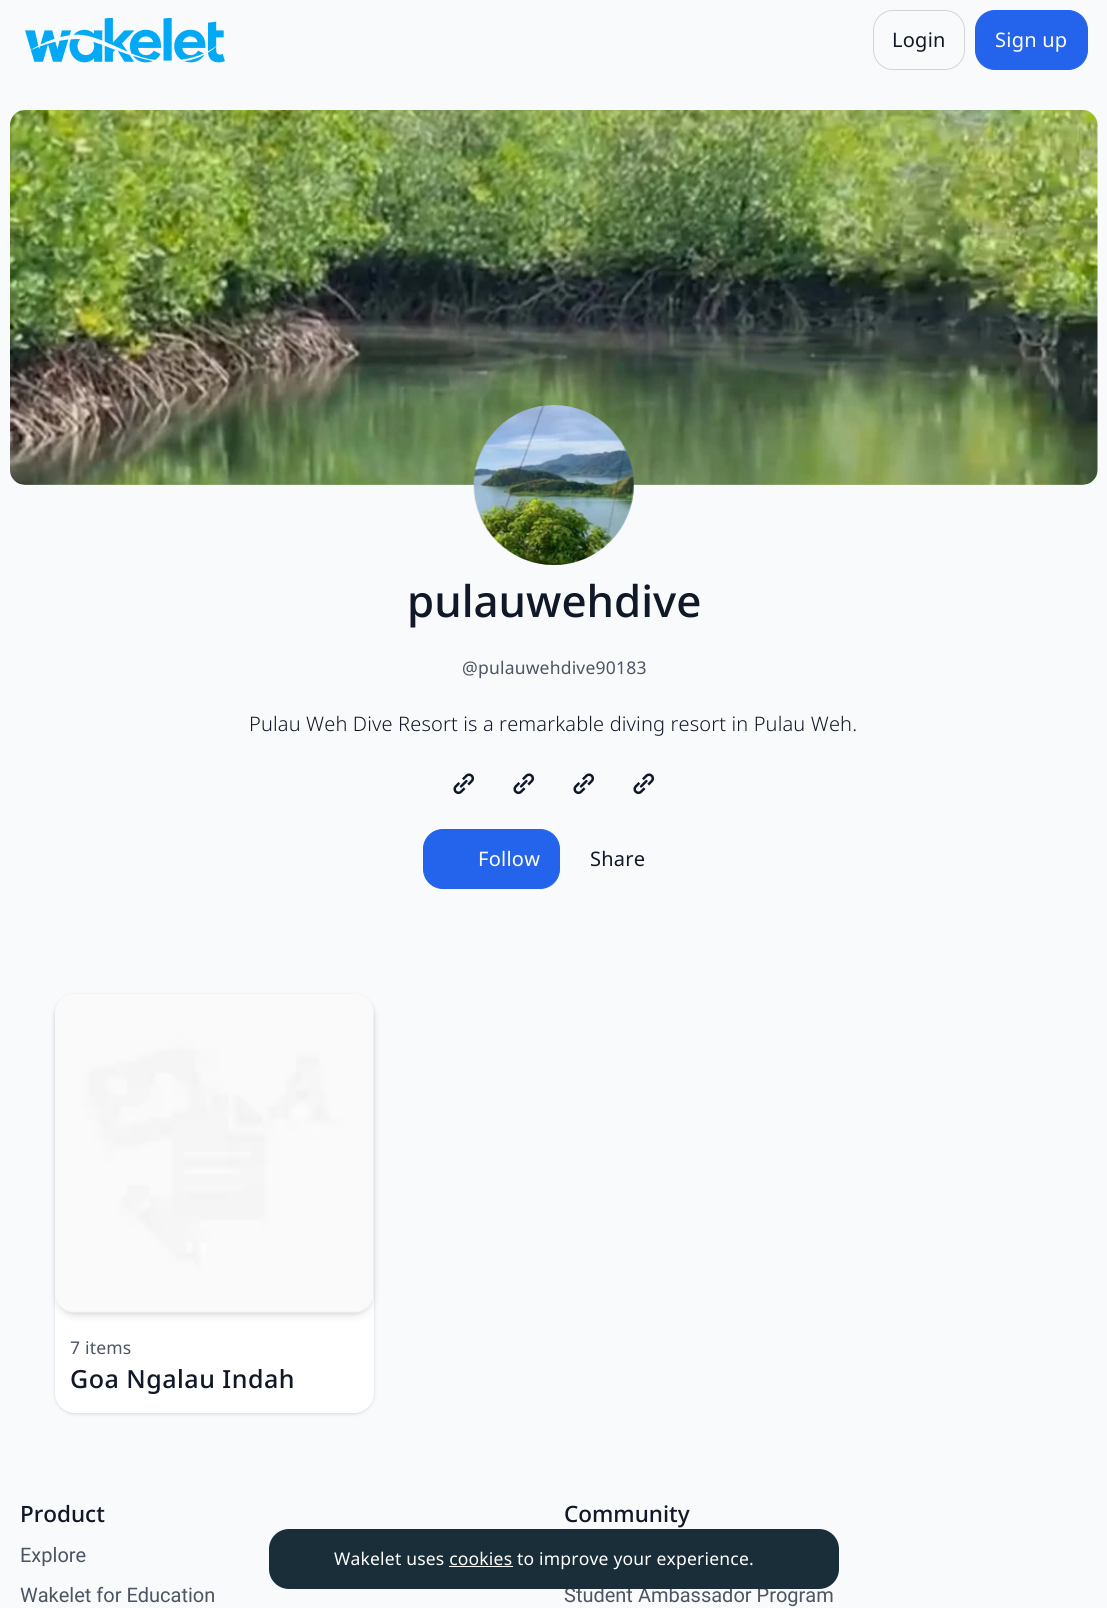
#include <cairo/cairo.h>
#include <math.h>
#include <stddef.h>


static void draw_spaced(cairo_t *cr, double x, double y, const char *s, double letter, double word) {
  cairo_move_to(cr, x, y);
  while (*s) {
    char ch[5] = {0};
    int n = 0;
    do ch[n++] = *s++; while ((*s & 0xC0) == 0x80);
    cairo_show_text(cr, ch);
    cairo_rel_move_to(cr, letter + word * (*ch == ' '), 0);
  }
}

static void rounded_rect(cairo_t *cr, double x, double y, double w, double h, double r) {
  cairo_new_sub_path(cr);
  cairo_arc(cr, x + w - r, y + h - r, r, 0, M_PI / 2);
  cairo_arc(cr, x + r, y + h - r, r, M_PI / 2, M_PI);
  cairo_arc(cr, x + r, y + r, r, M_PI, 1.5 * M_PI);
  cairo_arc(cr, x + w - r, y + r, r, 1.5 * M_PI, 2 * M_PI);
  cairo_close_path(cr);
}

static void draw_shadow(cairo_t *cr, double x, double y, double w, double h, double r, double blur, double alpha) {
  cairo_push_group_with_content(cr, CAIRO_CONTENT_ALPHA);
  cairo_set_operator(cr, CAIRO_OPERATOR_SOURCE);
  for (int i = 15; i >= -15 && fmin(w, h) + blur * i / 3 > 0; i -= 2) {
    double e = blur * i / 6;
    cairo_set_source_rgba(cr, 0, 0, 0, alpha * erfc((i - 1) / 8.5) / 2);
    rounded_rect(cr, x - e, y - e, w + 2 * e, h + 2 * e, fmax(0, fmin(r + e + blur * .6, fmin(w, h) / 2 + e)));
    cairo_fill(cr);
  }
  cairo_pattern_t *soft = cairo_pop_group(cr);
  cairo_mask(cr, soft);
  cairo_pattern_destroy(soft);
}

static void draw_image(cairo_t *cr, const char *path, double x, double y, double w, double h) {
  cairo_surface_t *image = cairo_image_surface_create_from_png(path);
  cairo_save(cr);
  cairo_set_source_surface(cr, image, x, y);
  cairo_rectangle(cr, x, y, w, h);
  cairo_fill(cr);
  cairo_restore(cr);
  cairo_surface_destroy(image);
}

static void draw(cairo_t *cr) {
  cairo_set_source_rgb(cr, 249 / 255.0, 250 / 255.0, 251 / 255.0);
  cairo_paint(cr);
  draw_image(cr, "images/1.png", 25, 18, 200, 45);
  rounded_rect(cr, 873.5, 10.5, 91, 59, 19.5);
  cairo_set_source_rgb(cr, 209 / 255.0, 213 / 255.0, 219 / 255.0);
  cairo_set_line_width(cr, 1);
  cairo_stroke(cr);
  cairo_set_source_rgb(cr, 36 / 255.0, 99 / 255.0, 235 / 255.0);
  rounded_rect(cr, 975.5, 10.5, 112, 59, 19.5);
  cairo_fill_preserve(cr);
  cairo_stroke(cr);
  draw_image(cr, "images/2.png", 10, 110, 1088, 375);
  draw_image(cr, "images/3.png", 473, 405, 161, 160);
  draw_image(cr, "images/4.png", 453, 773, 22, 22);
  draw_image(cr, "images/4.png", 513, 773, 22, 22);
  draw_image(cr, "images/4.png", 573, 773, 22, 22);
  draw_image(cr, "images/4.png", 633, 773, 22, 22);
  rounded_rect(cr, 423.5, 829.5, 136, 59, 19.5);
  cairo_fill_preserve(cr);
  cairo_stroke(cr);
  cairo_set_source_rgb(cr, 0, 24 / 255.0, 61 / 255.0);
  draw_shadow(cr, 55, 995, 319, 419, 20, 1, 0.06);
  draw_shadow(cr, 55, 995, 319, 419, 20, 2, 0.1);
  cairo_set_source_rgb(cr, 1, 1, 1);
  rounded_rect(cr, 55, 994, 319, 419, 20);
  cairo_fill(cr);
  cairo_set_source_rgb(cr, 0, 0, 0);
  draw_shadow(cr, 58, 999, 313, 314, 18, 2.5, 0.1);
  draw_shadow(cr, 56, 1000, 317, 316, 19, 4, 0.1);
  draw_image(cr, "images/5.png", 55, 994, 318, 319);
  cairo_select_font_face(cr, "Noto Sans", CAIRO_FONT_SLANT_NORMAL, CAIRO_FONT_WEIGHT_NORMAL);
  cairo_set_font_size(cr, 20);
  cairo_set_source_rgb(cr, 17 / 255.0, 24 / 255.0, 39 / 255.0);
  draw_spaced(cr, 892, 47, "Login", 0.25, 0);
  cairo_set_source_rgb(cr, 1, 1, 1);
  draw_spaced(cr, 995, 47, "Sign up", 0.25, 0);
  cairo_select_font_face(cr, "Noto Sans Medium", CAIRO_FONT_SLANT_NORMAL, CAIRO_FONT_WEIGHT_NORMAL);
  cairo_set_font_size(cr, 43.75);
  cairo_set_source_rgb(cr, 17 / 255.0, 24 / 255.0, 39 / 255.0);
  cairo_move_to(cr, 407, 617);
  cairo_show_text(cr, "pulauwehdive");
  cairo_select_font_face(cr, "Noto Sans", CAIRO_FONT_SLANT_NORMAL, CAIRO_FONT_WEIGHT_NORMAL);
  cairo_set_font_size(cr, 17.5);
  cairo_set_source_rgb(cr, 75 / 255.0, 85 / 255.0, 99 / 255.0);
  draw_spaced(cr, 462, 674, "@pulauwehdive90183", 0.2, 0);
  cairo_select_font_face(cr, "Noto Sans Light", CAIRO_FONT_SLANT_NORMAL, CAIRO_FONT_WEIGHT_NORMAL);
  cairo_set_font_size(cr, 20);
  cairo_set_source_rgb(cr, 17 / 255.0, 24 / 255.0, 39 / 255.0);
  draw_spaced(cr, 249, 731, "Pulau Weh Dive Resort is a remarkable diving resort in Pulau Weh.", 0.15, 0);
  cairo_select_font_face(cr, "Noto Sans", CAIRO_FONT_SLANT_NORMAL, CAIRO_FONT_WEIGHT_NORMAL);
  cairo_set_source_rgb(cr, 1, 1, 1);
  draw_spaced(cr, 478, 866, "Follow", 0.25, 0);
  cairo_set_source_rgb(cr, 17 / 255.0, 24 / 255.0, 39 / 255.0);
  draw_spaced(cr, 590, 866, "Share", 0.25, 0);
  cairo_set_font_size(cr, 17.5);
  cairo_set_source_rgb(cr, 75 / 255.0, 85 / 255.0, 99 / 255.0);
  draw_spaced(cr, 70, 1354, "7 items", 0.2, 0);
  cairo_select_font_face(cr, "Noto Sans Medium", CAIRO_FONT_SLANT_NORMAL, CAIRO_FONT_WEIGHT_NORMAL);
  cairo_set_font_size(cr, 25);
  cairo_set_source_rgb(cr, 17 / 255.0, 24 / 255.0, 39 / 255.0);
  draw_spaced(cr, 70, 1388, "Goa Ngalau Indah", 0.5, 0);
  cairo_set_font_size(cr, 22.5);
  cairo_move_to(cr, 20, 1522);
  cairo_show_text(cr, "Product");
  cairo_select_font_face(cr, "Roboto", CAIRO_FONT_SLANT_NORMAL, CAIRO_FONT_WEIGHT_NORMAL);
  cairo_set_font_size(cr, 20);
  cairo_set_source_rgb(cr, 75 / 255.0, 85 / 255.0, 99 / 255.0);
  cairo_move_to(cr, 20, 1562);
  cairo_show_text(cr, "Explore");
  cairo_move_to(cr, 20, 1602);
  cairo_show_text(cr, "Wakelet for Education");
  cairo_select_font_face(cr, "Noto Sans Medium", CAIRO_FONT_SLANT_NORMAL, CAIRO_FONT_WEIGHT_NORMAL);
  cairo_set_font_size(cr, 22.5);
  cairo_set_source_rgb(cr, 17 / 255.0, 24 / 255.0, 39 / 255.0);
  cairo_move_to(cr, 564, 1522);
  cairo_show_text(cr, "Community");
  cairo_select_font_face(cr, "Roboto", CAIRO_FONT_SLANT_NORMAL, CAIRO_FONT_WEIGHT_NORMAL);
  cairo_set_font_size(cr, 20);
  cairo_set_source_rgb(cr, 75 / 255.0, 85 / 255.0, 99 / 255.0);
  cairo_move_to(cr, 564, 1602);
  cairo_show_text(cr, "Student Ambassador Program");
  cairo_set_source_rgb(cr, 25 / 255.0, 46 / 255.0, 56 / 255.0);
  rounded_rect(cr, 269, 1529, 570, 60, 20);
  cairo_fill(cr);
  cairo_select_font_face(cr, "Noto Sans", CAIRO_FONT_SLANT_NORMAL, CAIRO_FONT_WEIGHT_NORMAL);
  cairo_set_font_size(cr, 17.5);
  cairo_set_source_rgb(cr, 1, 1, 1);
  draw_spaced(cr, 334, 1565, "Wakelet uses cookies to improve your experience.", 0.2, 0);
  cairo_rectangle(cr, 449, 1566, 64, 1);
  cairo_fill(cr);
}

int main(void) {
  cairo_surface_t *surface = cairo_image_surface_create(CAIRO_FORMAT_RGB24, 1107, 1608);
  cairo_t *cr = cairo_create(surface);
  cairo_font_options_t *options = cairo_font_options_create();
  cairo_font_options_set_hint_metrics(options, CAIRO_HINT_METRICS_OFF);
  cairo_font_options_set_hint_style(options, CAIRO_HINT_STYLE_NONE);
  cairo_set_font_options(cr, options);
  cairo_set_miter_limit(cr, 4);
  draw(cr);
  cairo_surface_write_to_png(surface, "out.png");
  cairo_font_options_destroy(options);
  cairo_destroy(cr);
  cairo_surface_destroy(surface);
  return 0;
}
